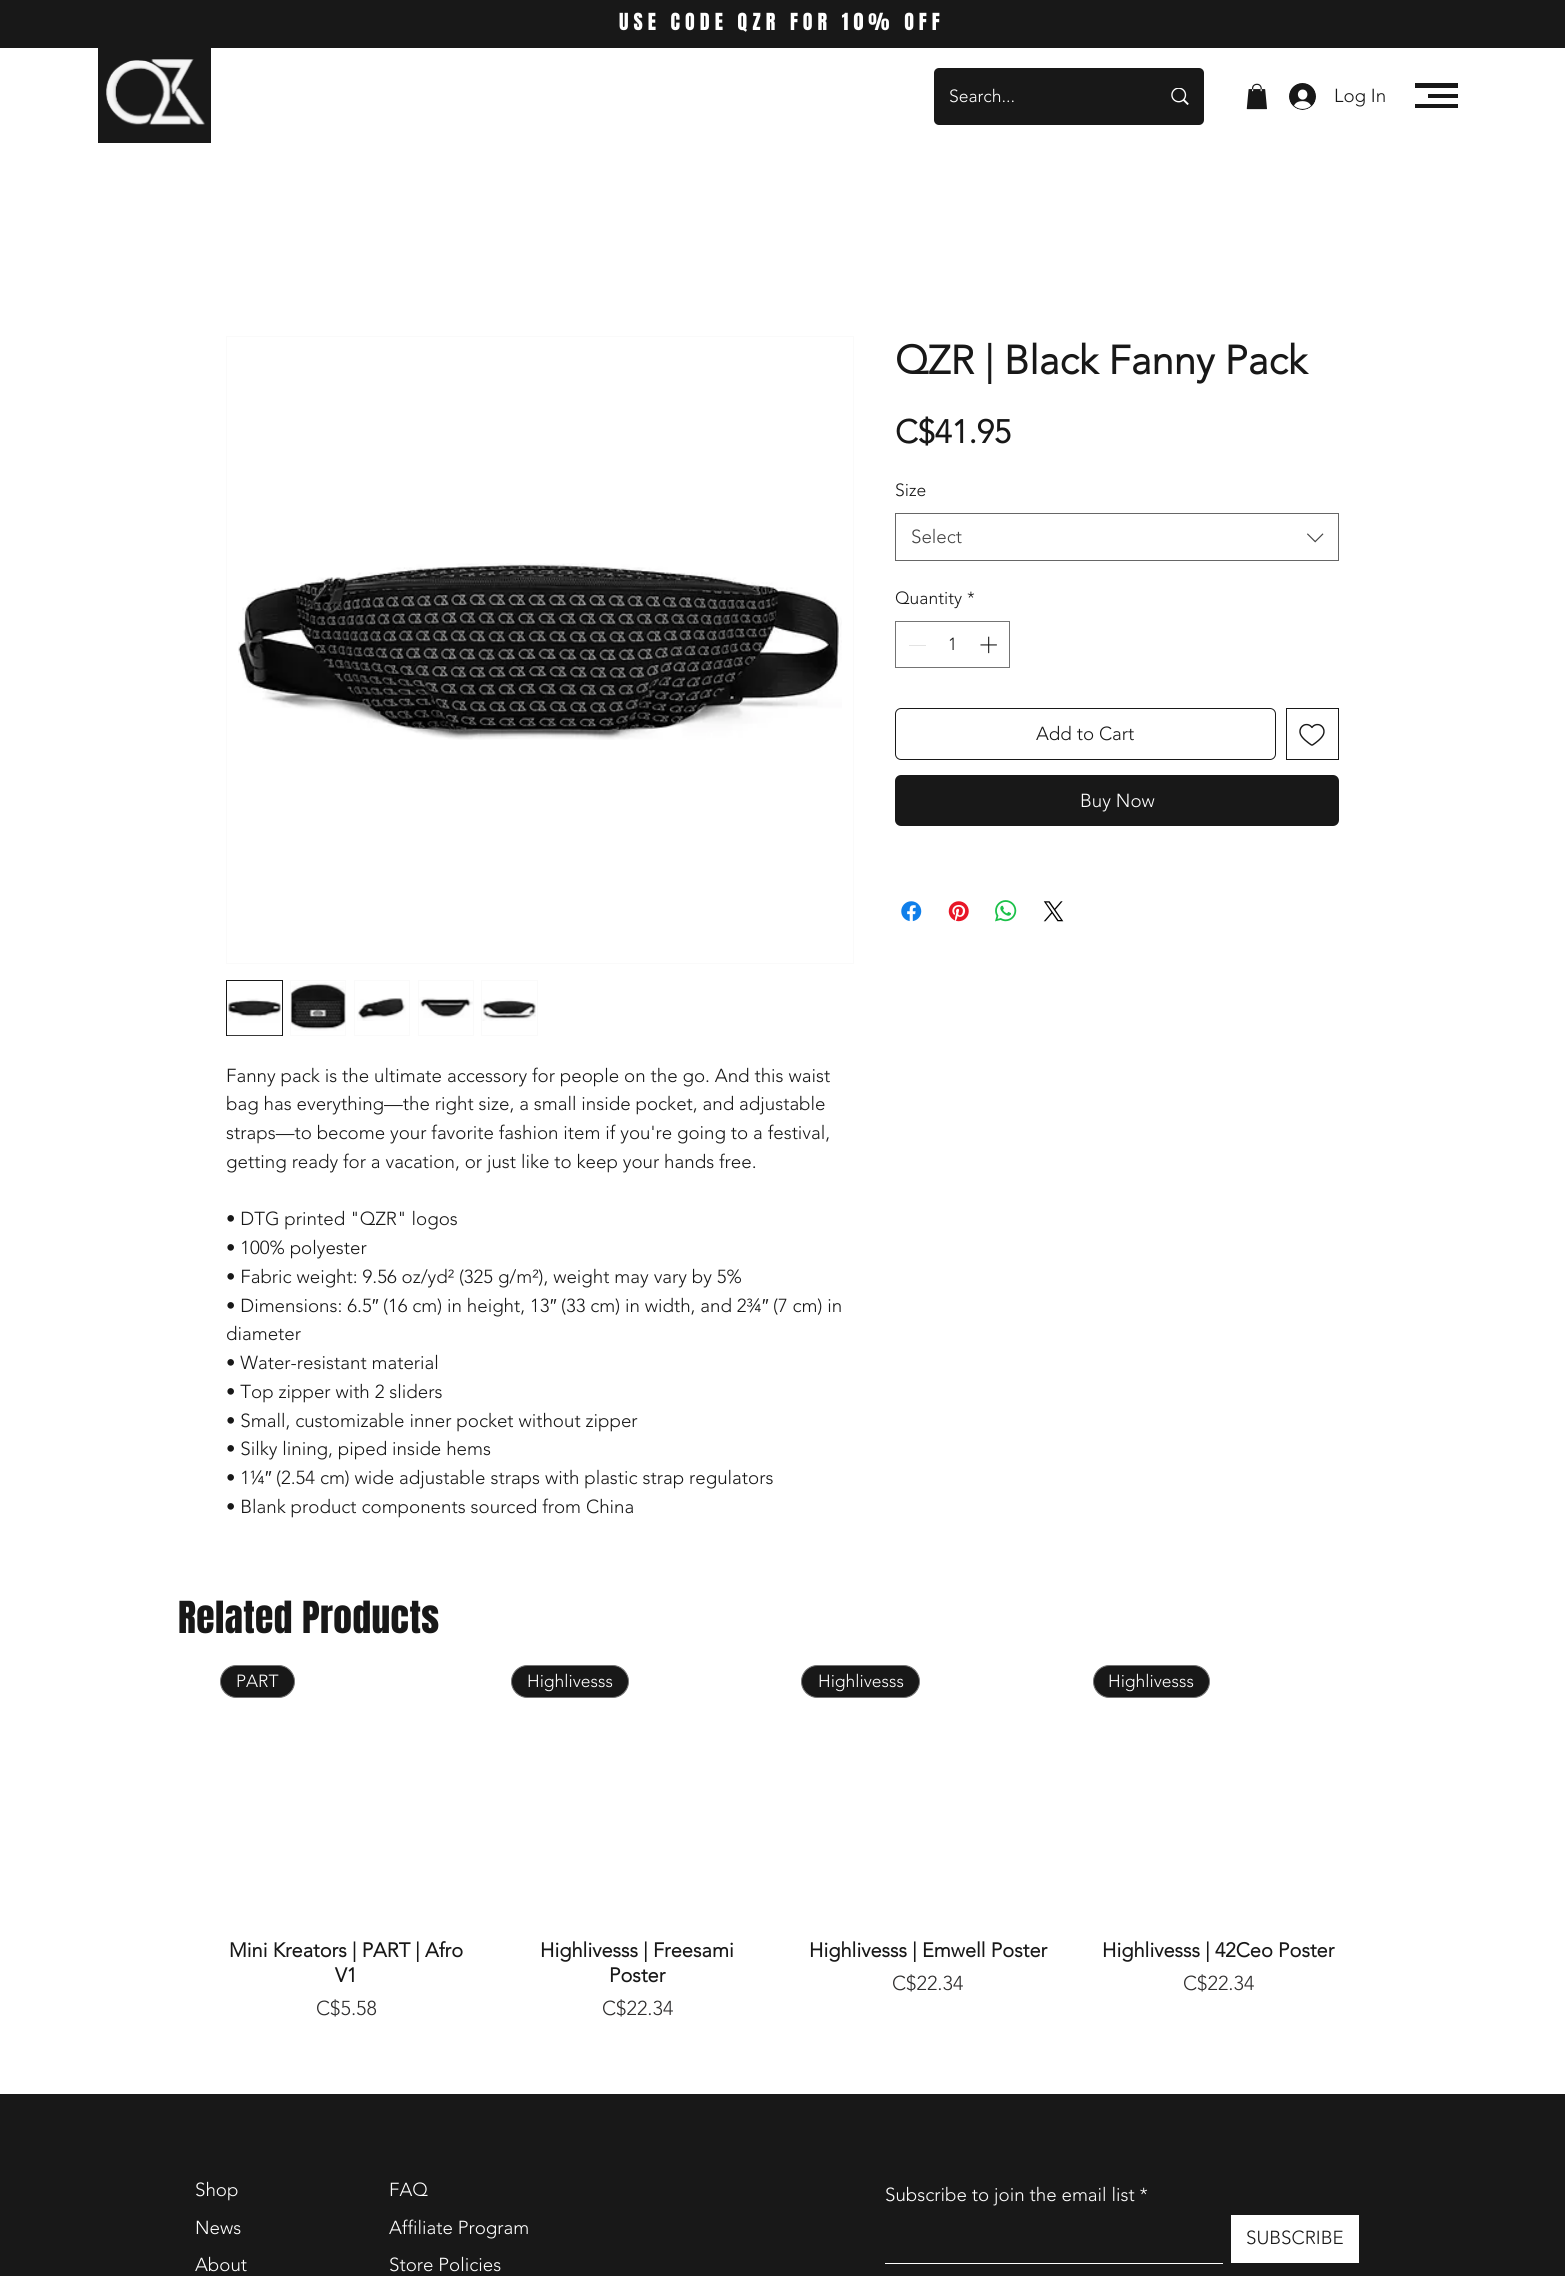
#include <cairo/cairo.h>
#include <math.h>
#include <stddef.h>


static void draw_spaced(cairo_t *cr, double x, double y, const char *s, double letter, double word) {
  cairo_move_to(cr, x, y);
  while (*s) {
    char ch[5] = {0};
    int n = 0;
    do ch[n++] = *s++; while ((*s & 0xC0) == 0x80);
    cairo_show_text(cr, ch);
    cairo_rel_move_to(cr, letter + word * (*ch == ' '), 0);
  }
}

static void rounded_rect(cairo_t *cr, double x, double y, double w, double h, double r) {
  cairo_new_sub_path(cr);
  cairo_arc(cr, x + w - r, y + h - r, r, 0, M_PI / 2);
  cairo_arc(cr, x + r, y + h - r, r, M_PI / 2, M_PI);
  cairo_arc(cr, x + r, y + r, r, M_PI, 1.5 * M_PI);
  cairo_arc(cr, x + w - r, y + r, r, 1.5 * M_PI, 2 * M_PI);
  cairo_close_path(cr);
}

static void draw_image(cairo_t *cr, const char *path, double x, double y, double w, double h) {
  cairo_surface_t *image = cairo_image_surface_create_from_png(path);
  cairo_save(cr);
  cairo_set_source_surface(cr, image, x, y);
  cairo_rectangle(cr, x, y, w, h);
  cairo_fill(cr);
  cairo_restore(cr);
  cairo_surface_destroy(image);
}

static void draw(cairo_t *cr) {
  cairo_set_source_rgb(cr, 1, 1, 1);
  cairo_paint(cr);
  cairo_set_source_rgb(cr, 24 / 255.0, 24 / 255.0, 24 / 255.0);
  cairo_rectangle(cr, 0, 0, 1565, 48);
  cairo_fill(cr);
  cairo_rectangle(cr, 98, 48, 113, 95);
  cairo_fill(cr);
  draw_image(cr, "images/1.png", 106, 59, 99, 66);
  rounded_rect(cr, 934, 68, 270, 57, 5);
  cairo_fill(cr);
  draw_image(cr, "images/2.png", 1171, 88, 18, 17);
  draw_image(cr, "images/3.png", 1246, 83, 21, 27);
  draw_image(cr, "images/4.png", 1289, 83, 27, 27);
  cairo_rectangle(cr, 1415, 83, 43, 5);
  cairo_fill(cr);
  cairo_rectangle(cr, 1428, 94, 30, 4);
  cairo_fill(cr);
  cairo_rectangle(cr, 1415, 104, 43, 4);
  cairo_fill(cr);
  cairo_rectangle(cr, 895.5, 513.5, 443, 47);
  cairo_set_source_rgb(cr, 102 / 255.0, 102 / 255.0, 102 / 255.0);
  cairo_set_line_width(cr, 1);
  cairo_stroke(cr);
  draw_image(cr, "images/5.png", 1307, 533, 17, 10);
  cairo_rectangle(cr, 895.5, 621.5, 114, 46);
  cairo_set_source_rgb(cr, 116 / 255.0, 116 / 255.0, 116 / 255.0);
  cairo_stroke(cr);
  cairo_set_source_rgb(cr, 227 / 255.0, 227 / 255.0, 227 / 255.0);
  cairo_rectangle(cr, 909, 645, 17, 1);
  cairo_fill(cr);
  draw_image(cr, "images/6.png", 980, 636, 17, 18);
  rounded_rect(cr, 895.5, 708.5, 380, 51, 5.5);
  cairo_set_source_rgb(cr, 24 / 255.0, 24 / 255.0, 24 / 255.0);
  cairo_stroke(cr);
  cairo_rectangle(cr, 1286.5, 708.5, 52, 51);
  cairo_stroke(cr);
  draw_image(cr, "images/7.png", 1299, 723, 26, 23);
  rounded_rect(cr, 895, 775, 444, 51, 6);
  cairo_fill(cr);
  draw_image(cr, "images/8.png", 901, 901, 21, 21);
  draw_image(cr, "images/9.png", 948, 901, 21, 21);
  draw_image(cr, "images/10.png", 995, 900, 22, 22);
  draw_image(cr, "images/11.png", 1043, 901, 21, 21);
  cairo_rectangle(cr, 226.5, 336.5, 627, 627);
  cairo_set_source_rgb(cr, 250 / 255.0, 250 / 255.0, 250 / 255.0);
  cairo_stroke(cr);
  draw_image(cr, "images/12.png", 238, 563, 604, 177);
  cairo_rectangle(cr, 226.5, 980.5, 56, 55);
  cairo_set_source_rgb(cr, 24 / 255.0, 24 / 255.0, 24 / 255.0);
  cairo_stroke(cr);
  draw_image(cr, "images/13.png", 227, 998, 55, 38);
  cairo_rectangle(cr, 290.5, 980.5, 55, 55);
  cairo_set_source_rgb(cr, 250 / 255.0, 250 / 255.0, 250 / 255.0);
  cairo_stroke(cr);
  draw_image(cr, "images/14.png", 290, 982, 56, 49);
  cairo_rectangle(cr, 354.5, 980.5, 55, 55);
  cairo_stroke(cr);
  draw_image(cr, "images/15.png", 357, 998, 49, 23);
  cairo_rectangle(cr, 418.5, 980.5, 55, 55);
  cairo_stroke(cr);
  draw_image(cr, "images/16.png", 419, 997, 54, 21);
  cairo_rectangle(cr, 481.5, 980.5, 56, 55);
  cairo_stroke(cr);
  draw_image(cr, "images/17.png", 482, 998, 54, 23);
  cairo_set_source_rgb(cr, 24 / 255.0, 24 / 255.0, 24 / 255.0);
  rounded_rect(cr, 220.5, 1665.5, 74, 32, 16);
  cairo_fill_preserve(cr);
  cairo_set_source_rgb(cr, 116 / 255.0, 116 / 255.0, 116 / 255.0);
  cairo_stroke(cr);
  cairo_set_source_rgb(cr, 24 / 255.0, 24 / 255.0, 24 / 255.0);
  rounded_rect(cr, 511.5, 1665.5, 117, 32, 16);
  cairo_fill_preserve(cr);
  cairo_set_source_rgb(cr, 116 / 255.0, 116 / 255.0, 116 / 255.0);
  cairo_stroke(cr);
  cairo_set_source_rgb(cr, 24 / 255.0, 24 / 255.0, 24 / 255.0);
  rounded_rect(cr, 801.5, 1665.5, 118, 32, 16);
  cairo_fill_preserve(cr);
  cairo_set_source_rgb(cr, 116 / 255.0, 116 / 255.0, 116 / 255.0);
  cairo_stroke(cr);
  cairo_set_source_rgb(cr, 24 / 255.0, 24 / 255.0, 24 / 255.0);
  rounded_rect(cr, 1093.5, 1665.5, 116, 32, 16);
  cairo_fill_preserve(cr);
  cairo_set_source_rgb(cr, 116 / 255.0, 116 / 255.0, 116 / 255.0);
  cairo_stroke(cr);
  cairo_set_source_rgb(cr, 24 / 255.0, 24 / 255.0, 24 / 255.0);
  cairo_rectangle(cr, 0, 2094, 1565, 182);
  cairo_fill(cr);
  cairo_set_source_rgb(cr, 1, 1, 1);
  cairo_rectangle(cr, 885, 2263, 338, 1);
  cairo_fill(cr);
  cairo_rectangle(cr, 1231, 2215, 128, 48);
  cairo_fill(cr);
  cairo_select_font_face(cr, "Anton", CAIRO_FONT_SLANT_NORMAL, CAIRO_FONT_WEIGHT_NORMAL);
  cairo_set_font_size(cr, 20);
  draw_spaced(cr, 619, 30, "USE CODE QZR FOR 10% OFF", 5, 0);
  cairo_select_font_face(cr, "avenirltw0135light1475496 Light", CAIRO_FONT_SLANT_NORMAL, CAIRO_FONT_WEIGHT_NORMAL);
  cairo_set_font_size(cr, 17.5);
  cairo_move_to(cr, 949, 102);
  cairo_show_text(cr, "Search...");
  cairo_set_font_size(cr, 18.75);
  cairo_set_source_rgb(cr, 24 / 255.0, 24 / 255.0, 24 / 255.0);
  cairo_move_to(cr, 1334, 102);
  cairo_show_text(cr, "Log In");
  cairo_select_font_face(cr, "avenirltw0135light1475496", CAIRO_FONT_SLANT_NORMAL, CAIRO_FONT_WEIGHT_BOLD);
  cairo_set_font_size(cr, 40);
  cairo_move_to(cr, 895, 374);
  cairo_show_text(cr, "QZR | Black Fanny Pack");
  cairo_set_font_size(cr, 32.5);
  cairo_move_to(cr, 895, 443);
  cairo_show_text(cr, "C$41.95");
  cairo_select_font_face(cr, "avenirltw0135light1475496 Light", CAIRO_FONT_SLANT_NORMAL, CAIRO_FONT_WEIGHT_NORMAL);
  cairo_set_font_size(cr, 17.5);
  cairo_move_to(cr, 895, 496);
  cairo_show_text(cr, "Size");
  cairo_set_font_size(cr, 18.75);
  cairo_set_source_rgb(cr, 68 / 255.0, 68 / 255.0, 68 / 255.0);
  cairo_move_to(cr, 911, 543);
  cairo_show_text(cr, "Select");
  cairo_set_font_size(cr, 17.5);
  cairo_set_source_rgb(cr, 24 / 255.0, 24 / 255.0, 24 / 255.0);
  cairo_move_to(cr, 895, 604);
  cairo_show_text(cr, "Quantity");
  cairo_move_to(cr, 967, 604);
  cairo_show_text(cr, "*");
  cairo_move_to(cr, 948, 650);
  cairo_show_text(cr, "1");
  cairo_set_font_size(cr, 18.75);
  cairo_move_to(cr, 1036, 740);
  cairo_show_text(cr, "Add to Cart");
  cairo_set_source_rgb(cr, 1, 1, 1);
  cairo_move_to(cr, 1080, 807);
  cairo_show_text(cr, "Buy Now");
  cairo_set_source_rgb(cr, 24 / 255.0, 24 / 255.0, 24 / 255.0);
  cairo_move_to(cr, 226, 1082);
  cairo_show_text(cr, "Fanny pack is the ultimate accessory for people on the go. And this waist");
  cairo_move_to(cr, 226, 1110);
  cairo_show_text(cr, "bag has everything—the right size, a small inside pocket, and adjustable");
  cairo_move_to(cr, 226, 1139);
  cairo_show_text(cr, "straps—to become your favorite fashion item if you're going to a festival,");
  cairo_move_to(cr, 226, 1168);
  cairo_show_text(cr, "getting ready for a vacation, or just like to keep your hands free.");
  cairo_move_to(cr, 226, 1225);
  cairo_show_text(cr, "• DTG printed \"QZR\" logos");
  cairo_move_to(cr, 226, 1254);
  cairo_show_text(cr, "• 100% polyester");
  cairo_move_to(cr, 226, 1283);
  cairo_show_text(cr, "• Fabric weight: 9.56 oz/yd² (325 g/m²), weight may vary by 5%");
  cairo_move_to(cr, 226, 1312);
  cairo_show_text(cr, "• Dimensions: 6.5");
  cairo_select_font_face(cr, "Liberation Sans", CAIRO_FONT_SLANT_NORMAL, CAIRO_FONT_WEIGHT_NORMAL);
  cairo_move_to(cr, 372, 1312);
  cairo_show_text(cr, "″");
  cairo_select_font_face(cr, "avenirltw0135light1475496 Light", CAIRO_FONT_SLANT_NORMAL, CAIRO_FONT_WEIGHT_NORMAL);
  cairo_move_to(cr, 383, 1312);
  cairo_show_text(cr, "(16 cm) in height, 13");
  cairo_select_font_face(cr, "Liberation Sans", CAIRO_FONT_SLANT_NORMAL, CAIRO_FONT_WEIGHT_NORMAL);
  cairo_move_to(cr, 550, 1312);
  cairo_show_text(cr, "″");
  cairo_select_font_face(cr, "avenirltw0135light1475496 Light", CAIRO_FONT_SLANT_NORMAL, CAIRO_FONT_WEIGHT_NORMAL);
  cairo_move_to(cr, 561, 1312);
  cairo_show_text(cr, "(33 cm) in width, and 2¾");
  cairo_select_font_face(cr, "Liberation Sans", CAIRO_FONT_SLANT_NORMAL, CAIRO_FONT_WEIGHT_NORMAL);
  cairo_move_to(cr, 762, 1312);
  cairo_show_text(cr, "″");
  cairo_select_font_face(cr, "avenirltw0135light1475496 Light", CAIRO_FONT_SLANT_NORMAL, CAIRO_FONT_WEIGHT_NORMAL);
  cairo_move_to(cr, 773, 1312);
  cairo_show_text(cr, "(7 cm) in");
  cairo_move_to(cr, 226, 1340);
  cairo_show_text(cr, "diameter");
  cairo_move_to(cr, 226, 1369);
  cairo_show_text(cr, "• Water-resistant material");
  cairo_move_to(cr, 226, 1398);
  cairo_show_text(cr, "• Top zipper with 2 sliders");
  cairo_move_to(cr, 226, 1427);
  cairo_show_text(cr, "• Small, customizable inner pocket without zipper");
  cairo_move_to(cr, 226, 1455);
  cairo_show_text(cr, "• Silky lining, piped inside hems");
  cairo_move_to(cr, 226, 1484);
  cairo_show_text(cr, "• 1¼");
  cairo_select_font_face(cr, "Liberation Sans", CAIRO_FONT_SLANT_NORMAL, CAIRO_FONT_WEIGHT_NORMAL);
  cairo_move_to(cr, 265, 1484);
  cairo_show_text(cr, "″");
  cairo_select_font_face(cr, "avenirltw0135light1475496 Light", CAIRO_FONT_SLANT_NORMAL, CAIRO_FONT_WEIGHT_NORMAL);
  cairo_move_to(cr, 276, 1484);
  cairo_show_text(cr, "(2.54 cm) wide adjustable straps with plastic strap regulators");
  cairo_move_to(cr, 226, 1513);
  cairo_show_text(cr, "• Blank product components sourced from China");
  cairo_select_font_face(cr, "Anton", CAIRO_FONT_SLANT_NORMAL, CAIRO_FONT_WEIGHT_NORMAL);
  cairo_set_font_size(cr, 37.5);
  draw_spaced(cr, 178, 1633, "Related Products", 0.4, 0);
  cairo_select_font_face(cr, "avenirltw0135light1475496 Light", CAIRO_FONT_SLANT_NORMAL, CAIRO_FONT_WEIGHT_NORMAL);
  cairo_set_font_size(cr, 17.5);
  cairo_set_source_rgb(cr, 1, 1, 1);
  cairo_move_to(cr, 236, 1687);
  cairo_show_text(cr, "PART");
  cairo_select_font_face(cr, "avenirltw0135light1475496", CAIRO_FONT_SLANT_NORMAL, CAIRO_FONT_WEIGHT_BOLD);
  cairo_set_font_size(cr, 20);
  cairo_set_source_rgb(cr, 24 / 255.0, 24 / 255.0, 24 / 255.0);
  cairo_move_to(cr, 229, 1957);
  cairo_show_text(cr, "Mini Kreators | PART | Afro");
  cairo_move_to(cr, 335, 1982);
  cairo_show_text(cr, "V1");
  cairo_select_font_face(cr, "avenirltw0135light1475496 Light", CAIRO_FONT_SLANT_NORMAL, CAIRO_FONT_WEIGHT_NORMAL);
  cairo_set_source_rgb(cr, 46 / 255.0, 45 / 255.0, 45 / 255.0);
  cairo_move_to(cr, 316, 2015);
  cairo_show_text(cr, "C$5.58");
  cairo_set_font_size(cr, 17.5);
  cairo_set_source_rgb(cr, 1, 1, 1);
  cairo_move_to(cr, 527, 1687);
  cairo_show_text(cr, "Highlivesss");
  cairo_select_font_face(cr, "avenirltw0135light1475496", CAIRO_FONT_SLANT_NORMAL, CAIRO_FONT_WEIGHT_BOLD);
  cairo_set_font_size(cr, 20);
  cairo_set_source_rgb(cr, 24 / 255.0, 24 / 255.0, 24 / 255.0);
  cairo_move_to(cr, 540, 1957);
  cairo_show_text(cr, "Highlivesss | Freesami");
  cairo_move_to(cr, 609, 1982);
  cairo_show_text(cr, "Poster");
  cairo_select_font_face(cr, "avenirltw0135light1475496 Light", CAIRO_FONT_SLANT_NORMAL, CAIRO_FONT_WEIGHT_NORMAL);
  cairo_set_source_rgb(cr, 46 / 255.0, 45 / 255.0, 45 / 255.0);
  cairo_move_to(cr, 602, 2015);
  cairo_show_text(cr, "C$22.34");
  cairo_set_font_size(cr, 17.5);
  cairo_set_source_rgb(cr, 1, 1, 1);
  cairo_move_to(cr, 818, 1687);
  cairo_show_text(cr, "Highlivesss");
  cairo_select_font_face(cr, "avenirltw0135light1475496", CAIRO_FONT_SLANT_NORMAL, CAIRO_FONT_WEIGHT_BOLD);
  cairo_set_font_size(cr, 20);
  cairo_set_source_rgb(cr, 24 / 255.0, 24 / 255.0, 24 / 255.0);
  cairo_move_to(cr, 809, 1957);
  cairo_show_text(cr, "Highlivesss | Emwell Poster");
  cairo_select_font_face(cr, "avenirltw0135light1475496 Light", CAIRO_FONT_SLANT_NORMAL, CAIRO_FONT_WEIGHT_NORMAL);
  cairo_set_source_rgb(cr, 46 / 255.0, 45 / 255.0, 45 / 255.0);
  cairo_move_to(cr, 892, 1990);
  cairo_show_text(cr, "C$22.34");
  cairo_set_font_size(cr, 17.5);
  cairo_set_source_rgb(cr, 1, 1, 1);
  cairo_move_to(cr, 1108, 1687);
  cairo_show_text(cr, "Highlivesss");
  cairo_select_font_face(cr, "avenirltw0135light1475496", CAIRO_FONT_SLANT_NORMAL, CAIRO_FONT_WEIGHT_BOLD);
  cairo_set_font_size(cr, 20);
  cairo_set_source_rgb(cr, 24 / 255.0, 24 / 255.0, 24 / 255.0);
  cairo_move_to(cr, 1102, 1957);
  cairo_show_text(cr, "Highlivesss | 42Ceo Poster");
  cairo_select_font_face(cr, "avenirltw0135light1475496 Light", CAIRO_FONT_SLANT_NORMAL, CAIRO_FONT_WEIGHT_NORMAL);
  cairo_set_source_rgb(cr, 46 / 255.0, 45 / 255.0, 45 / 255.0);
  cairo_move_to(cr, 1183, 1990);
  cairo_show_text(cr, "C$22.34");
  cairo_set_font_size(cr, 18.75);
  cairo_set_source_rgb(cr, 1, 1, 1);
  cairo_move_to(cr, 195, 2196);
  cairo_show_text(cr, "Shop");
  cairo_move_to(cr, 195, 2234);
  cairo_show_text(cr, "News");
  cairo_move_to(cr, 195, 2271);
  cairo_show_text(cr, "About");
  cairo_move_to(cr, 389, 2196);
  cairo_show_text(cr, "FAQ");
  cairo_move_to(cr, 389, 2234);
  cairo_show_text(cr, "Affiliate Program");
  cairo_move_to(cr, 389, 2271);
  cairo_show_text(cr, "Store Policies");
  cairo_move_to(cr, 885, 2201);
  cairo_show_text(cr, "Subscribe to join the email list *");
  cairo_set_source_rgb(cr, 24 / 255.0, 24 / 255.0, 24 / 255.0);
  cairo_move_to(cr, 1246, 2244);
  cairo_show_text(cr, "SUBSCRIBE");
}

int main(void) {
  cairo_surface_t *surface = cairo_image_surface_create(CAIRO_FORMAT_RGB24, 1565, 2276);
  cairo_t *cr = cairo_create(surface);
  cairo_font_options_t *options = cairo_font_options_create();
  cairo_font_options_set_hint_metrics(options, CAIRO_HINT_METRICS_OFF);
  cairo_font_options_set_hint_style(options, CAIRO_HINT_STYLE_NONE);
  cairo_set_font_options(cr, options);
  cairo_set_miter_limit(cr, 4);
  draw(cr);
  cairo_surface_write_to_png(surface, "out.png");
  cairo_font_options_destroy(options);
  cairo_destroy(cr);
  cairo_surface_destroy(surface);
  return 0;
}
